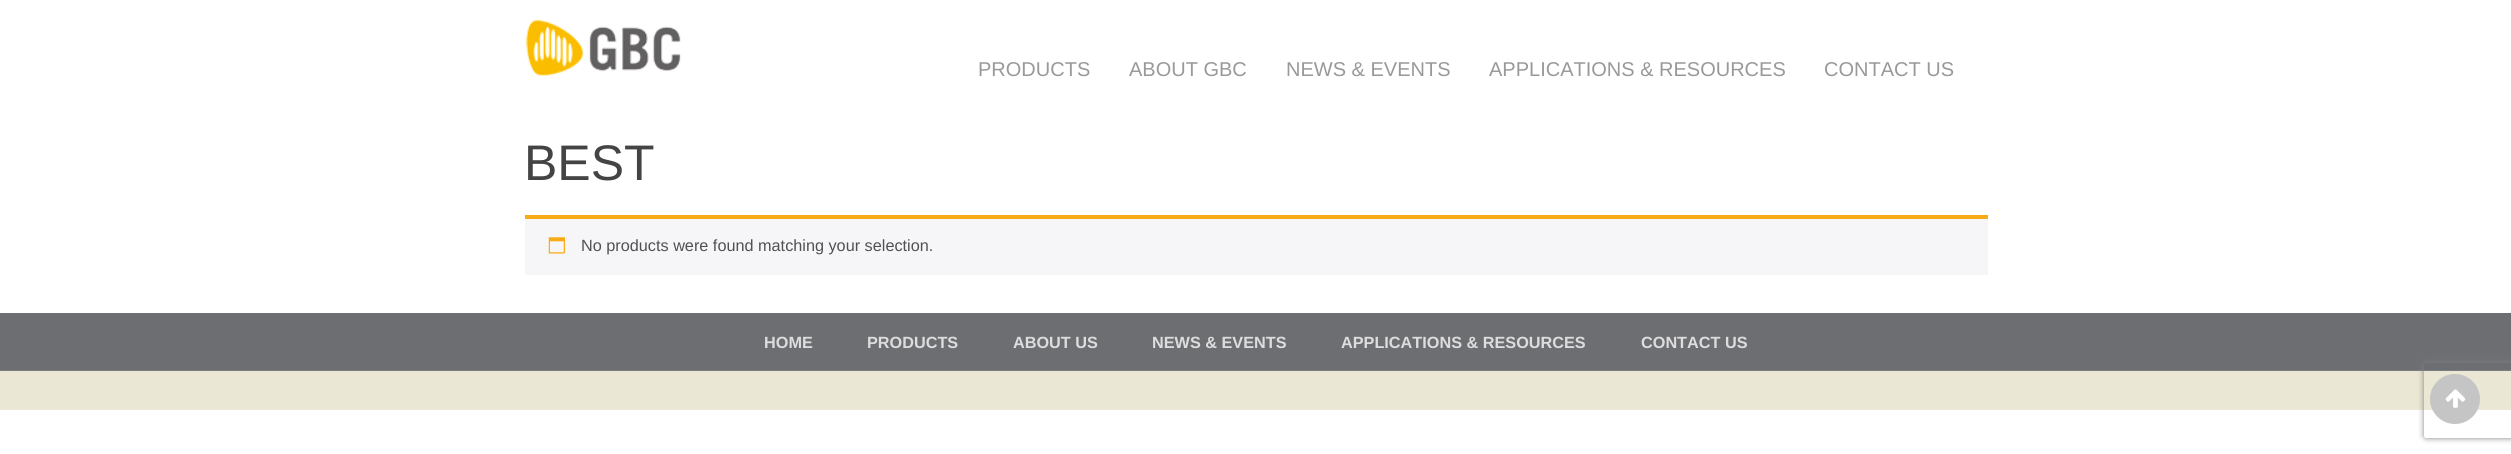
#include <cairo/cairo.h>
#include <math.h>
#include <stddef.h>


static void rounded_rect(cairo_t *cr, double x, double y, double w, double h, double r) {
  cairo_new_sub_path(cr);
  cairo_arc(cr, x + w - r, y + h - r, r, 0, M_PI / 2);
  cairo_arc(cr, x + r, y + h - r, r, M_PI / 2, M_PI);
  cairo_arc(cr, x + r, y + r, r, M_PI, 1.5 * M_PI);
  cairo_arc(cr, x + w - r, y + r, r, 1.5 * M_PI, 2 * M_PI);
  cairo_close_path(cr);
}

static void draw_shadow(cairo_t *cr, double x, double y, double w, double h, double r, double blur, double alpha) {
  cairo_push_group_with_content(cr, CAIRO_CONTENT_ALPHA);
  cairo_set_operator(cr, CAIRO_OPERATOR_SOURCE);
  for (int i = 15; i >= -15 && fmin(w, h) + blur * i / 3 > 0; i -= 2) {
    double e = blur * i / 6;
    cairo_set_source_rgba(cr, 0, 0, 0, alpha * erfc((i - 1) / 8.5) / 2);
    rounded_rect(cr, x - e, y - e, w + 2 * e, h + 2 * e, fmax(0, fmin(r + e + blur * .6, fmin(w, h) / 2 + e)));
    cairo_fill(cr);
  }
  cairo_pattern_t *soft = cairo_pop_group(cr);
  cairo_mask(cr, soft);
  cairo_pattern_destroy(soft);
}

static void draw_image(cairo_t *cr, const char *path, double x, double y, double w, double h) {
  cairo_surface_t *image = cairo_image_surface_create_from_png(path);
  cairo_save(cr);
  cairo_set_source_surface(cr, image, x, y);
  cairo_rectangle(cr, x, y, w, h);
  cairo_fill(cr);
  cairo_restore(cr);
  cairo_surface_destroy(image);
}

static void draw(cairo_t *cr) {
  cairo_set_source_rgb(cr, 1, 1, 1);
  cairo_paint(cr);
  draw_image(cr, "images/1.png", 526, 20, 155, 56);
  cairo_set_source_rgb(cr, 246 / 255.0, 245 / 255.0, 248 / 255.0);
  cairo_rectangle(cr, 525, 219, 1463, 56);
  cairo_fill(cr);
  cairo_set_source_rgb(cr, 248 / 255.0, 171 / 255.0, 22 / 255.0);
  cairo_rectangle(cr, 525, 215, 1463, 4);
  cairo_fill(cr);
  draw_image(cr, "images/2.png", 548, 237, 17, 17);
  cairo_set_source_rgb(cr, 234 / 255.0, 231 / 255.0, 212 / 255.0);
  cairo_rectangle(cr, 0, 371, 2511, 38);
  cairo_fill(cr);
  cairo_set_source_rgb(cr, 109 / 255.0, 110 / 255.0, 114 / 255.0);
  cairo_rectangle(cr, 0, 313, 2511, 57);
  cairo_fill(cr);
  cairo_set_source_rgb(cr, 124 / 255.0, 125 / 255.0, 128 / 255.0);
  cairo_rectangle(cr, 0, 370, 2511, 1);
  cairo_fill(cr);
  cairo_set_source_rgb(cr, 236 / 255.0, 233 / 255.0, 216 / 255.0);
  cairo_rectangle(cr, 0, 409, 2511, 1);
  cairo_fill(cr);
  cairo_save(cr);
  cairo_set_fill_rule(cr, CAIRO_FILL_RULE_EVEN_ODD);
  cairo_new_path(cr);
  cairo_move_to(cr, 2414, 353);
  cairo_line_to(cr, 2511, 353);
  cairo_line_to(cr, 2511, 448);
  cairo_line_to(cr, 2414, 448);
  cairo_close_path(cr);
  cairo_move_to(cr, 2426.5, 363);
  cairo_line_to(cr, 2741.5, 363);
  cairo_curve_to(cr, 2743, 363, 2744, 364, 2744, 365.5);
  cairo_line_to(cr, 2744, 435.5);
  cairo_curve_to(cr, 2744, 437, 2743, 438, 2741.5, 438);
  cairo_line_to(cr, 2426.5, 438);
  cairo_curve_to(cr, 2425, 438, 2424, 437, 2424, 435.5);
  cairo_line_to(cr, 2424, 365.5);
  cairo_curve_to(cr, 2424, 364, 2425, 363, 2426.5, 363);
  cairo_close_path(cr);
  cairo_clip(cr);
  cairo_set_source_rgb(cr, 128 / 255.0, 128 / 255.0, 128 / 255.0);
  draw_shadow(cr, 2424, 363, 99, 75, 2.5, 3, 1);
  cairo_restore(cr);
  cairo_set_source_rgb(cr, 197 / 255.0, 197 / 255.0, 197 / 255.0);
  cairo_arc(cr, 2455, 399, 25, 0, 2 * M_PI);
  cairo_fill(cr);
  draw_image(cr, "images/3.png", 2445, 389, 21, 19);
  cairo_select_font_face(cr, "Liberation Sans", CAIRO_FONT_SLANT_NORMAL, CAIRO_FONT_WEIGHT_NORMAL);
  cairo_set_font_size(cr, 20);
  cairo_set_source_rgb(cr, 153 / 255.0, 153 / 255.0, 153 / 255.0);
  cairo_move_to(cr, 978, 76);
  cairo_show_text(cr, "PRODUCTS");
  cairo_move_to(cr, 1129, 76);
  cairo_show_text(cr, "ABOUT GBC");
  cairo_move_to(cr, 1286, 76);
  cairo_show_text(cr, "NEWS & EVENTS");
  cairo_move_to(cr, 1489, 76);
  cairo_show_text(cr, "APPLICATIONS & RESOURCES");
  cairo_move_to(cr, 1824, 76);
  cairo_show_text(cr, "CONTACT US");
  cairo_set_font_size(cr, 50);
  cairo_set_source_rgb(cr, 68 / 255.0, 68 / 255.0, 68 / 255.0);
  cairo_move_to(cr, 524, 180);
  cairo_show_text(cr, "BEST");
  cairo_set_font_size(cr, 16.25);
  cairo_set_source_rgb(cr, 81 / 255.0, 81 / 255.0, 81 / 255.0);
  cairo_move_to(cr, 581, 251);
  cairo_show_text(cr, "No products were found matching your selection.");
  cairo_select_font_face(cr, "Liberation Sans", CAIRO_FONT_SLANT_NORMAL, CAIRO_FONT_WEIGHT_BOLD);
  cairo_set_source_rgb(cr, 221 / 255.0, 221 / 255.0, 221 / 255.0);
  cairo_move_to(cr, 764, 348);
  cairo_show_text(cr, "HOME");
  cairo_move_to(cr, 867, 348);
  cairo_show_text(cr, "PRODUCTS");
  cairo_move_to(cr, 1013, 348);
  cairo_show_text(cr, "ABOUT US");
  cairo_move_to(cr, 1152, 348);
  cairo_show_text(cr, "NEWS & EVENTS");
  cairo_move_to(cr, 1341, 348);
  cairo_show_text(cr, "APPLICATIONS & RESOURCES");
  cairo_move_to(cr, 1641, 348);
  cairo_show_text(cr, "CONTACT US");
}

int main(void) {
  cairo_surface_t *surface = cairo_image_surface_create(CAIRO_FORMAT_RGB24, 2511, 454);
  cairo_t *cr = cairo_create(surface);
  cairo_font_options_t *options = cairo_font_options_create();
  cairo_font_options_set_hint_metrics(options, CAIRO_HINT_METRICS_OFF);
  cairo_font_options_set_hint_style(options, CAIRO_HINT_STYLE_NONE);
  cairo_set_font_options(cr, options);
  cairo_set_miter_limit(cr, 4);
  draw(cr);
  cairo_surface_write_to_png(surface, "out.png");
  cairo_font_options_destroy(options);
  cairo_destroy(cr);
  cairo_surface_destroy(surface);
  return 0;
}
